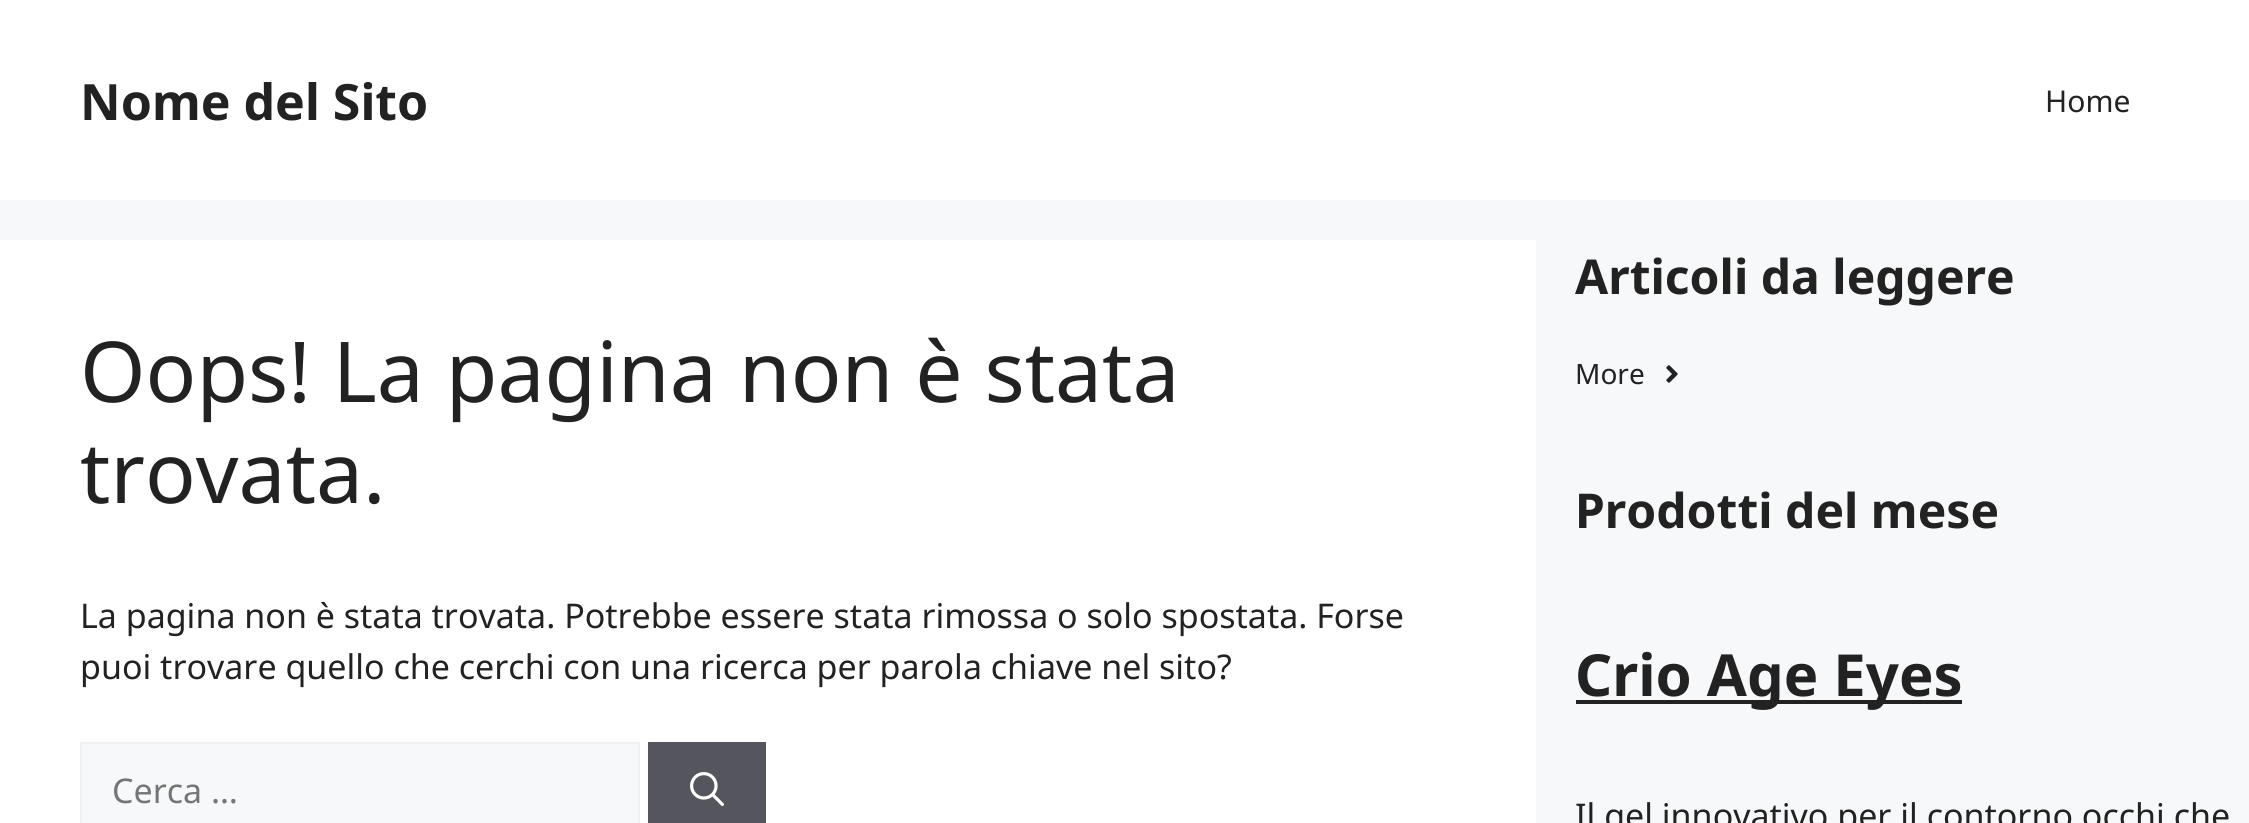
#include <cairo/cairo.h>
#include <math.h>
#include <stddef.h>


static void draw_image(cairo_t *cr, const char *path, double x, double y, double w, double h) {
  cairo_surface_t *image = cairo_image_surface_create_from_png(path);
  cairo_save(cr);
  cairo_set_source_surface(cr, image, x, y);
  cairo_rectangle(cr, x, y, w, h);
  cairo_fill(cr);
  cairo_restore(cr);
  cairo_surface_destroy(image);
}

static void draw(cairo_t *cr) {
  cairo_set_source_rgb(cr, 247 / 255.0, 248 / 255.0, 249 / 255.0);
  cairo_paint(cr);
  cairo_set_source_rgb(cr, 1, 1, 1);
  cairo_rectangle(cr, 0, 0, 2249, 200);
  cairo_fill(cr);
  cairo_rectangle(cr, 0, 240, 1536, 583);
  cairo_fill(cr);
  cairo_set_source_rgb(cr, 247 / 255.0, 248 / 255.0, 249 / 255.0);
  cairo_rectangle(cr, 81, 743, 558, 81);
  cairo_fill_preserve(cr);
  cairo_set_source_rgb(cr, 240 / 255.0, 240 / 255.0, 240 / 255.0);
  cairo_stroke(cr);
  cairo_set_source_rgb(cr, 85 / 255.0, 85 / 255.0, 94 / 255.0);
  cairo_rectangle(cr, 648, 742, 118, 81);
  cairo_fill(cr);
  draw_image(cr, "images/1.png", 690, 772, 34, 34);
  draw_image(cr, "images/2.png", 1666, 365, 12, 18);
  cairo_set_source_rgb(cr, 34 / 255.0, 34 / 255.0, 34 / 255.0);
  cairo_rectangle(cr, 1576, 700, 386, 4);
  cairo_fill(cr);
  cairo_select_font_face(cr, "Noto Sans", CAIRO_FONT_SLANT_NORMAL, CAIRO_FONT_WEIGHT_BOLD);
  cairo_set_font_size(cr, 50);
  cairo_move_to(cr, 80, 120);
  cairo_show_text(cr, "Nome del Sito");
  cairo_select_font_face(cr, "Noto Sans", CAIRO_FONT_SLANT_NORMAL, CAIRO_FONT_WEIGHT_NORMAL);
  cairo_set_font_size(cr, 30);
  cairo_move_to(cr, 2045, 112);
  cairo_show_text(cr, "Home");
  cairo_set_font_size(cr, 84);
  cairo_move_to(cr, 80, 402);
  cairo_show_text(cr, "Oops! La pagina non è stata");
  cairo_move_to(cr, 80, 503);
  cairo_show_text(cr, "trovata.");
  cairo_set_font_size(cr, 34);
  cairo_move_to(cr, 80, 628);
  cairo_show_text(cr, "La pagina non è stata trovata. Potrebbe essere stata rimossa o solo spostata. Forse");
  cairo_move_to(cr, 80, 679);
  cairo_show_text(cr, "puoi trovare quello che cerchi con una ricerca per parola chiave nel sito?");
  cairo_set_source_rgb(cr, 117 / 255.0, 117 / 255.0, 117 / 255.0);
  cairo_move_to(cr, 112, 803);
  cairo_show_text(cr, "Cerca …");
  cairo_select_font_face(cr, "Noto Sans", CAIRO_FONT_SLANT_NORMAL, CAIRO_FONT_WEIGHT_BOLD);
  cairo_set_font_size(cr, 48);
  cairo_set_source_rgb(cr, 34 / 255.0, 34 / 255.0, 34 / 255.0);
  cairo_move_to(cr, 1575, 294);
  cairo_show_text(cr, "Articoli da leggere");
  cairo_select_font_face(cr, "Noto Sans", CAIRO_FONT_SLANT_NORMAL, CAIRO_FONT_WEIGHT_NORMAL);
  cairo_set_font_size(cr, 28);
  cairo_move_to(cr, 1575, 384);
  cairo_show_text(cr, "More");
  cairo_select_font_face(cr, "Noto Sans", CAIRO_FONT_SLANT_NORMAL, CAIRO_FONT_WEIGHT_BOLD);
  cairo_set_font_size(cr, 48);
  cairo_move_to(cr, 1575, 528);
  cairo_show_text(cr, "Prodotti del mese");
  cairo_set_font_size(cr, 58);
  cairo_move_to(cr, 1575, 696);
  cairo_show_text(cr, "Crio Age Eyes");
  cairo_select_font_face(cr, "Noto Sans", CAIRO_FONT_SLANT_NORMAL, CAIRO_FONT_WEIGHT_NORMAL);
  cairo_set_font_size(cr, 34);
  cairo_move_to(cr, 1575, 828);
  cairo_show_text(cr, "Il gel innovativo per il contorno occhi che");
}

int main(void) {
  cairo_surface_t *surface = cairo_image_surface_create(CAIRO_FORMAT_RGB24, 2249, 823);
  cairo_t *cr = cairo_create(surface);
  cairo_font_options_t *options = cairo_font_options_create();
  cairo_font_options_set_hint_metrics(options, CAIRO_HINT_METRICS_OFF);
  cairo_font_options_set_hint_style(options, CAIRO_HINT_STYLE_NONE);
  cairo_set_font_options(cr, options);
  cairo_set_miter_limit(cr, 4);
  draw(cr);
  cairo_surface_write_to_png(surface, "out.png");
  cairo_font_options_destroy(options);
  cairo_destroy(cr);
  cairo_surface_destroy(surface);
  return 0;
}
